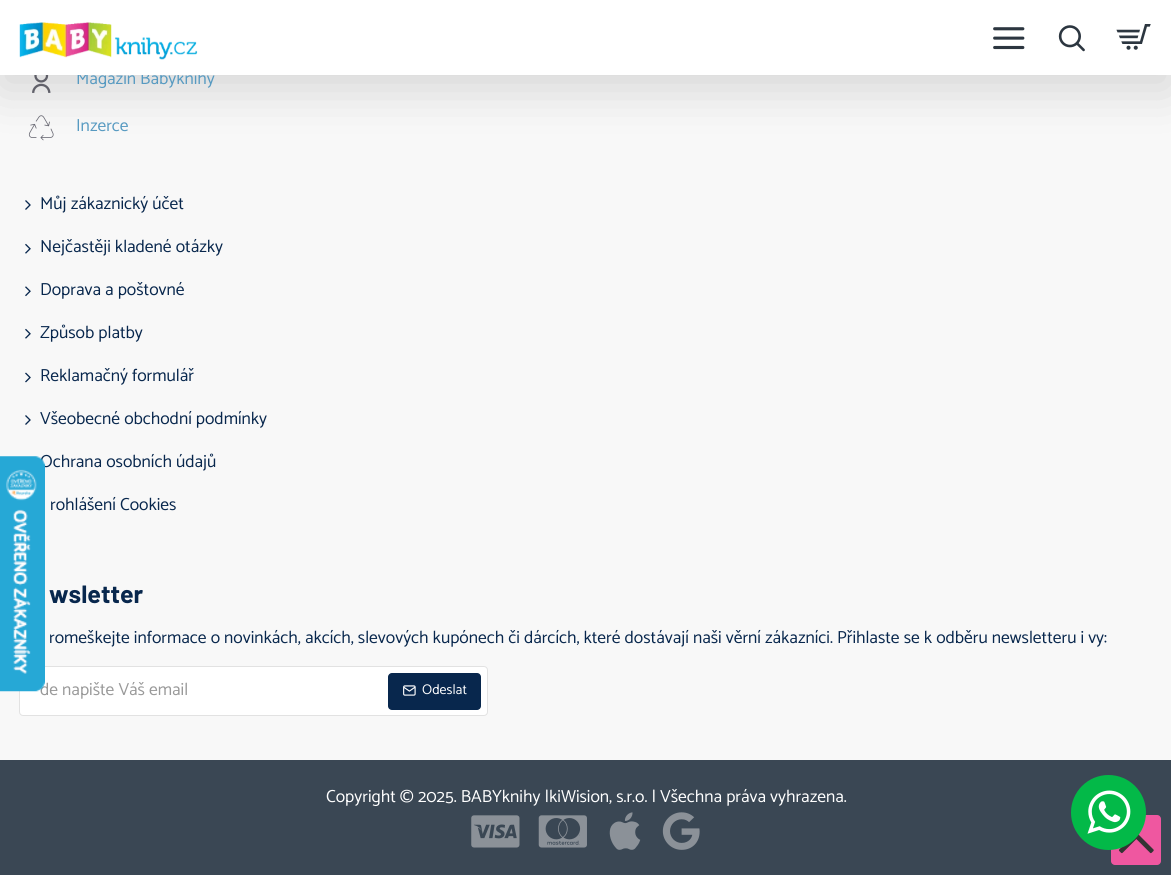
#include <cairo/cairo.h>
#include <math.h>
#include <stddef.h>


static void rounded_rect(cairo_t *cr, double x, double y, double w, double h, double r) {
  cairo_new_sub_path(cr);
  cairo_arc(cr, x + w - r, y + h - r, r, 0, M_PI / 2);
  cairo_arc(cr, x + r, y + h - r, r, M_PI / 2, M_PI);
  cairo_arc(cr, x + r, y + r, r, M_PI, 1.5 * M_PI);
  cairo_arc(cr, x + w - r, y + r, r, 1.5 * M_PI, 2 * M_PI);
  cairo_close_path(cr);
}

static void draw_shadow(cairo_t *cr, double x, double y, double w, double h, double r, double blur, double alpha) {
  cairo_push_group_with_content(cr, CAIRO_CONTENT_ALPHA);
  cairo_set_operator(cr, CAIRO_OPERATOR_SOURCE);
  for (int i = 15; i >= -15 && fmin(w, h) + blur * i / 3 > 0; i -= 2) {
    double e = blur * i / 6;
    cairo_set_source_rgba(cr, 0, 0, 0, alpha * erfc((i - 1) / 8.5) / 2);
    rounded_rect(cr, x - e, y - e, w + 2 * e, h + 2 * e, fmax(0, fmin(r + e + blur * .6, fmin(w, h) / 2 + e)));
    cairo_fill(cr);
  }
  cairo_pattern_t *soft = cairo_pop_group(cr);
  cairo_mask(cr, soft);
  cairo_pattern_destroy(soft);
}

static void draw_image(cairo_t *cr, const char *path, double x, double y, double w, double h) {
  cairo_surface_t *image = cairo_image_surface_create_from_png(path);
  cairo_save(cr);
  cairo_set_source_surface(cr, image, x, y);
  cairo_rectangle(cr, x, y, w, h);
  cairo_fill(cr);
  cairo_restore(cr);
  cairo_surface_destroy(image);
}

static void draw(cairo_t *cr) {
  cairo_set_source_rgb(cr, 248 / 255.0, 248 / 255.0, 248 / 255.0);
  cairo_paint(cr);
  draw_image(cr, "images/6.png", 32, 75, 19, 18);
  draw_image(cr, "images/7.png", 28, 115, 26, 26);
  cairo_set_source_rgb(cr, 0, 0, 0);
  draw_shadow(cr, 0, -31, 1171, 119, 0, 25, 0.15);
  draw_image(cr, "images/8.png", 25, 200, 6, 10);
  draw_image(cr, "images/9.png", 25, 243, 6, 11);
  draw_image(cr, "images/10.png", 25, 286, 6, 11);
  draw_image(cr, "images/9.png", 25, 328, 6, 11);
  draw_image(cr, "images/11.png", 25, 372, 6, 11);
  draw_image(cr, "images/8.png", 25, 415, 6, 10);
  cairo_set_source_rgb(cr, 1, 1, 1);
  rounded_rect(cr, 19.5, 666.5, 468, 49, 3.5);
  cairo_fill_preserve(cr);
  cairo_set_source_rgb(cr, 226 / 255.0, 226 / 255.0, 226 / 255.0);
  cairo_set_line_width(cr, 1);
  cairo_stroke(cr);
  cairo_set_source_rgb(cr, 8 / 255.0, 39 / 255.0, 77 / 255.0);
  rounded_rect(cr, 388, 673, 93, 37, 4);
  cairo_fill(cr);
  draw_image(cr, "images/12.png", 403, 685, 13, 11);
  cairo_set_source_rgb(cr, 58 / 255.0, 71 / 255.0, 84 / 255.0);
  cairo_rectangle(cr, 0, 760, 1171, 115);
  cairo_fill(cr);
  draw_image(cr, "images/13.png", 471, 815, 49, 33);
  draw_image(cr, "images/14.png", 538, 815, 49, 33);
  draw_image(cr, "images/15.png", 609, 812, 32, 38);
  draw_image(cr, "images/16.png", 662, 812, 38, 38);
  cairo_set_source_rgb(cr, 239 / 255.0, 87 / 255.0, 160 / 255.0);
  rounded_rect(cr, 1111, 815, 50, 50, 4);
  cairo_fill(cr);
  draw_image(cr, "images/18.png", 1119, 834, 35, 20);
  cairo_set_source_rgb(cr, 3 / 255.0, 185 / 255.0, 72 / 255.0);
  cairo_arc(cr, 1108.5, 812.5, 37.5, 0, 2 * M_PI);
  cairo_fill(cr);
  draw_image(cr, "images/17.png", 1087, 790, 44, 44);
  cairo_select_font_face(cr, "Catamaran Thin", CAIRO_FONT_SLANT_NORMAL, CAIRO_FONT_WEIGHT_NORMAL);
  cairo_set_font_size(cr, 17.5);
  cairo_set_source_rgb(cr, 87 / 255.0, 154 / 255.0, 193 / 255.0);
  cairo_move_to(cr, 76, 84);
  cairo_show_text(cr, "Magazín Babyknihy");
  cairo_set_source_rgb(cr, 1, 1, 1);
  cairo_rectangle(cr, 0, 0, 1171, 75);
  cairo_fill(cr);
  draw_image(cr, "images/5.png", 1116, 24, 35, 26);
  draw_image(cr, "images/4.png", 1058, 25, 27, 27);
  draw_image(cr, "images/3.png", 993, 27, 32, 23);
  draw_image(cr, "images/2.png", 19, 22, 179, 38);
  cairo_set_source_rgb(cr, 87 / 255.0, 154 / 255.0, 193 / 255.0);
  cairo_move_to(cr, 76, 131);
  cairo_show_text(cr, "Inzerce");
  cairo_set_source_rgb(cr, 8 / 255.0, 39 / 255.0, 77 / 255.0);
  cairo_move_to(cr, 40, 209);
  cairo_show_text(cr, "Můj zákaznický účet");
  cairo_move_to(cr, 40, 252);
  cairo_show_text(cr, "Nejčastěji kladené otázky");
  cairo_move_to(cr, 40, 295);
  cairo_show_text(cr, "Doprava a poštovné");
  cairo_move_to(cr, 40, 338);
  cairo_show_text(cr, "Způsob platby");
  cairo_move_to(cr, 40, 381);
  cairo_show_text(cr, "Reklamačný formulář");
  cairo_move_to(cr, 40, 424);
  cairo_show_text(cr, "Všeobecné obchodní podmínky");
  cairo_move_to(cr, 40, 467);
  cairo_show_text(cr, "Ochrana osobních údajů");
  cairo_move_to(cr, 50, 510);
  cairo_show_text(cr, "rohlášení Cookies");
  cairo_select_font_face(cr, "Barlow", CAIRO_FONT_SLANT_NORMAL, CAIRO_FONT_WEIGHT_BOLD);
  cairo_set_font_size(cr, 25);
  cairo_move_to(cr, 49, 603);
  cairo_show_text(cr, "wsletter");
  cairo_select_font_face(cr, "Catamaran Thin", CAIRO_FONT_SLANT_NORMAL, CAIRO_FONT_WEIGHT_NORMAL);
  cairo_set_font_size(cr, 17.5);
  cairo_move_to(cr, 49, 643);
  cairo_show_text(cr, "romeškejte informace o novinkách, akcích, slevových kupónech či dárcích, které dostávají naši věrní zákazníci. Přihlaste se k odběru newsletteru i vy:");
  cairo_set_source_rgb(cr, 153 / 255.0, 153 / 255.0, 153 / 255.0);
  cairo_move_to(cr, 40, 695);
  cairo_show_text(cr, "de napište Váš email");
  draw_image(cr, "images/1.png", 0, 456, 45, 236);
  cairo_set_font_size(cr, 14);
  cairo_set_source_rgb(cr, 1, 1, 1);
  cairo_move_to(cr, 422, 694);
  cairo_show_text(cr, "Odeslat");
  cairo_set_font_size(cr, 17.5);
  cairo_move_to(cr, 326, 802);
  cairo_show_text(cr, "Copyright © 2025. BABYknihy |kiWision, s.r.o. | Všechna práva vyhrazena.");
}

int main(void) {
  cairo_surface_t *surface = cairo_image_surface_create(CAIRO_FORMAT_RGB24, 1171, 875);
  cairo_t *cr = cairo_create(surface);
  cairo_font_options_t *options = cairo_font_options_create();
  cairo_font_options_set_hint_metrics(options, CAIRO_HINT_METRICS_OFF);
  cairo_font_options_set_hint_style(options, CAIRO_HINT_STYLE_NONE);
  cairo_set_font_options(cr, options);
  cairo_set_miter_limit(cr, 4);
  draw(cr);
  cairo_surface_write_to_png(surface, "out.png");
  cairo_font_options_destroy(options);
  cairo_destroy(cr);
  cairo_surface_destroy(surface);
  return 0;
}
